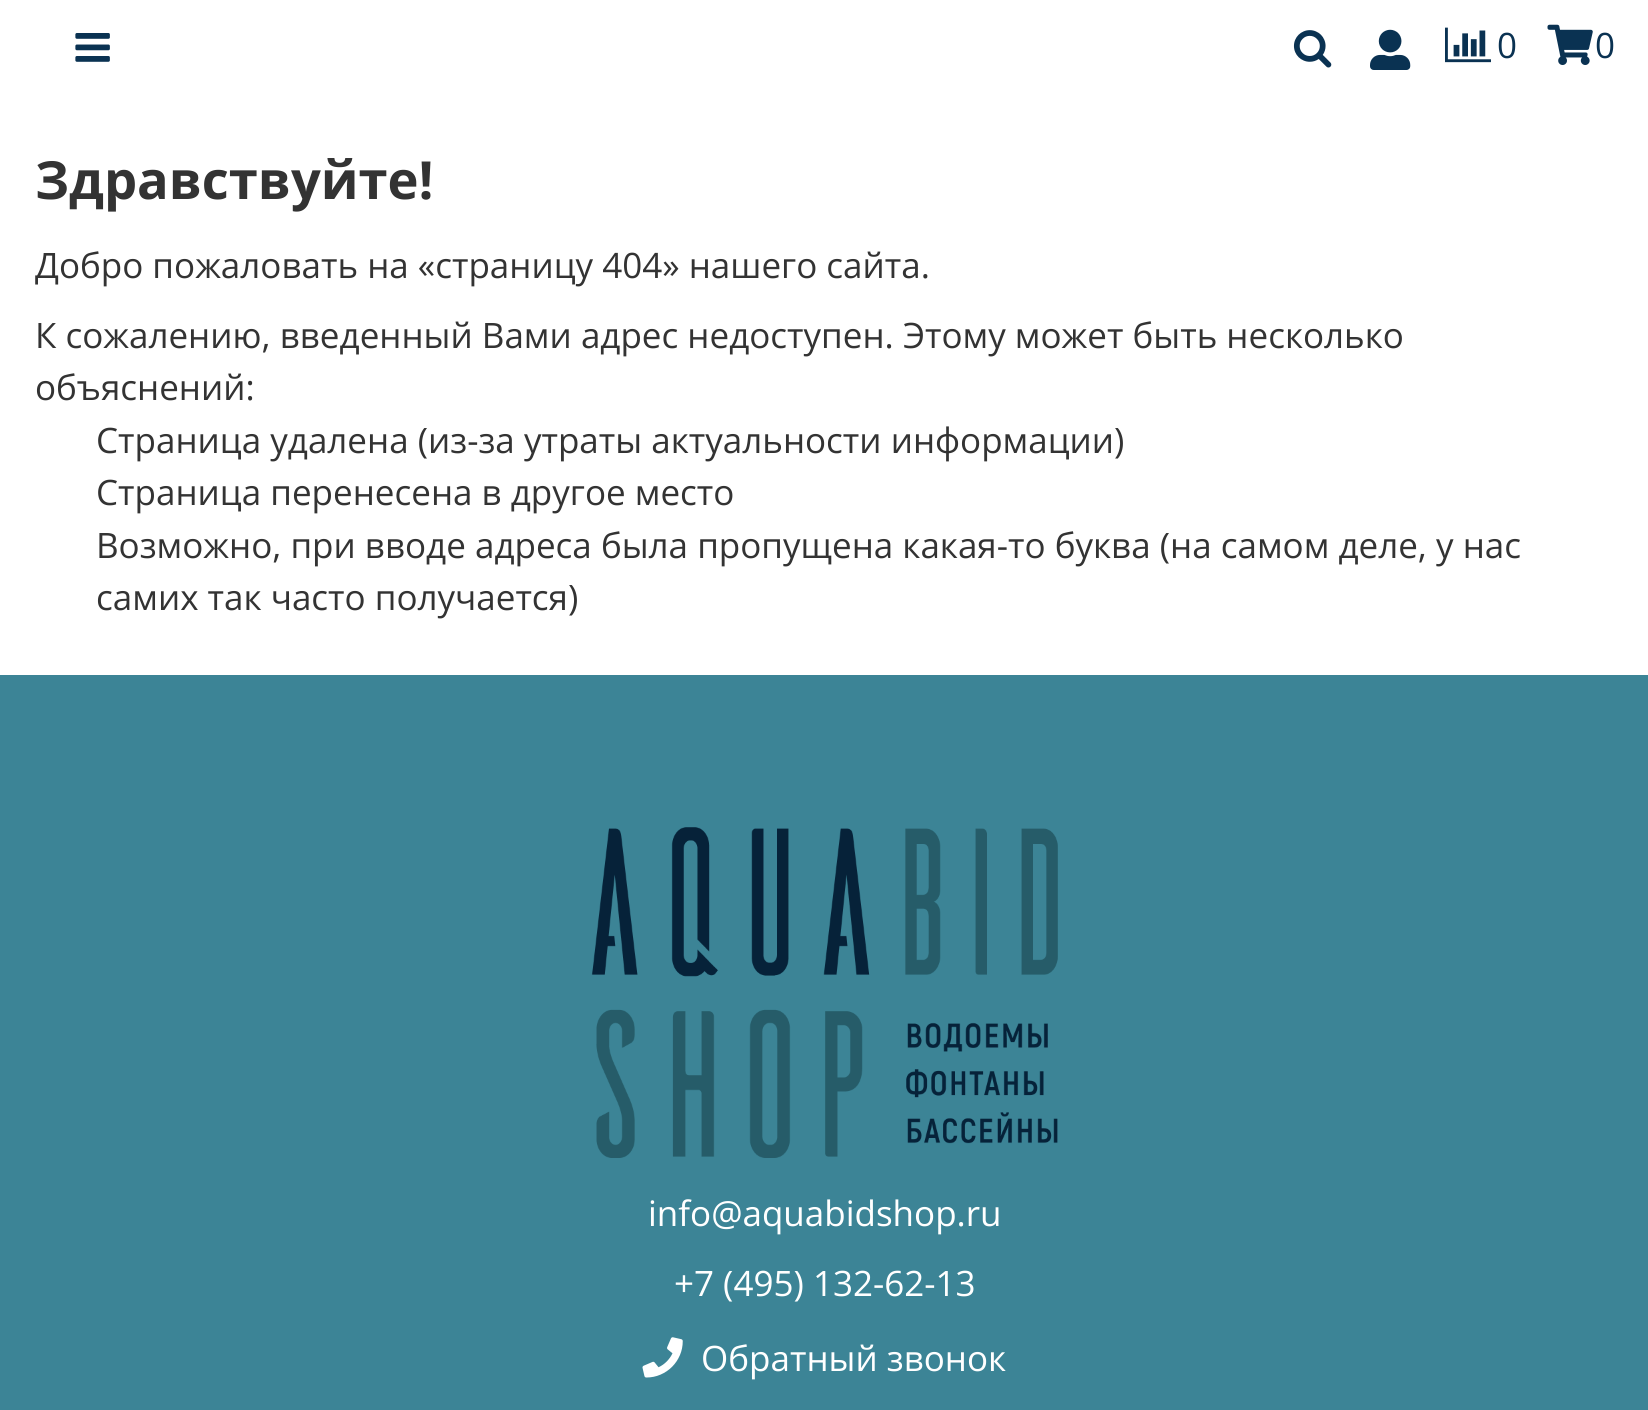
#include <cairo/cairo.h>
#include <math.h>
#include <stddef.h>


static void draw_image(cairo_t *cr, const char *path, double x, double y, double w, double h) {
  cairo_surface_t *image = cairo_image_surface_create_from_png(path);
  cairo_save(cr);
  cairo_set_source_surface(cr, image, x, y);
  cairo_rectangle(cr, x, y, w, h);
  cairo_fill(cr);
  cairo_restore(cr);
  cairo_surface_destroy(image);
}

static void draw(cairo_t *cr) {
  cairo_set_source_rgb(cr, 1, 1, 1);
  cairo_paint(cr);
  draw_image(cr, "images/1.png", 75, 33, 35, 29);
  draw_image(cr, "images/2.png", 1293, 30, 39, 38);
  draw_image(cr, "images/3.png", 1370, 29, 41, 41);
  draw_image(cr, "images/4.png", 1445, 27, 46, 36);
  draw_image(cr, "images/5.png", 1547, 24, 46, 41);
  cairo_set_source_rgb(cr, 60 / 255.0, 132 / 255.0, 150 / 255.0);
  cairo_rectangle(cr, 0, 675, 1648, 735);
  cairo_fill(cr);
  draw_image(cr, "images/6.png", 591, 827, 467, 331);
  draw_image(cr, "images/7.png", 642, 1337, 41, 41);
  cairo_select_font_face(cr, "Open Sans", CAIRO_FONT_SLANT_NORMAL, CAIRO_FONT_WEIGHT_NORMAL);
  cairo_set_font_size(cr, 35);
  cairo_set_source_rgb(cr, 10 / 255.0, 50 / 255.0, 82 / 255.0);
  cairo_move_to(cr, 1497, 58);
  cairo_show_text(cr, "0");
  cairo_move_to(cr, 1595, 58);
  cairo_show_text(cr, "0");
  cairo_select_font_face(cr, "Open Sans", CAIRO_FONT_SLANT_NORMAL, CAIRO_FONT_WEIGHT_BOLD);
  cairo_set_font_size(cr, 52.5);
  cairo_set_source_rgb(cr, 51 / 255.0, 51 / 255.0, 51 / 255.0);
  cairo_move_to(cr, 35, 199);
  cairo_show_text(cr, "Здравствуйте!");
  cairo_select_font_face(cr, "Open Sans", CAIRO_FONT_SLANT_NORMAL, CAIRO_FONT_WEIGHT_NORMAL);
  cairo_set_font_size(cr, 35);
  cairo_move_to(cr, 35, 278);
  cairo_show_text(cr, "Добро пожаловать на «страницу 404» нашего сайта.");
  cairo_move_to(cr, 35, 348);
  cairo_show_text(cr, "К сожалению, введенный Вами адрес недоступен. Этому может быть несколько");
  cairo_move_to(cr, 35, 400);
  cairo_show_text(cr, "объяснений:");
  cairo_move_to(cr, 96, 453);
  cairo_show_text(cr, "Страница удалена (из-за утраты актуальности информации)");
  cairo_move_to(cr, 96, 505);
  cairo_show_text(cr, "Страница перенесена в другое место");
  cairo_move_to(cr, 96, 558);
  cairo_show_text(cr, "Возможно, при вводе адреса была пропущена какая-то буква (на самом деле, у нас");
  cairo_move_to(cr, 96, 610);
  cairo_show_text(cr, "самих так часто получается)");
  cairo_set_source_rgb(cr, 1, 1, 1);
  cairo_move_to(cr, 648, 1226);
  cairo_show_text(cr, "info@aquabidshop.ru");
  cairo_move_to(cr, 674, 1296);
  cairo_show_text(cr, "+7 (495) 132-62-13");
  cairo_move_to(cr, 701, 1371);
  cairo_show_text(cr, "Обратный звонок");
}

int main(void) {
  cairo_surface_t *surface = cairo_image_surface_create(CAIRO_FORMAT_RGB24, 1648, 1410);
  cairo_t *cr = cairo_create(surface);
  cairo_font_options_t *options = cairo_font_options_create();
  cairo_font_options_set_hint_metrics(options, CAIRO_HINT_METRICS_OFF);
  cairo_font_options_set_hint_style(options, CAIRO_HINT_STYLE_NONE);
  cairo_set_font_options(cr, options);
  cairo_set_miter_limit(cr, 4);
  draw(cr);
  cairo_surface_write_to_png(surface, "out.png");
  cairo_font_options_destroy(options);
  cairo_destroy(cr);
  cairo_surface_destroy(surface);
  return 0;
}
